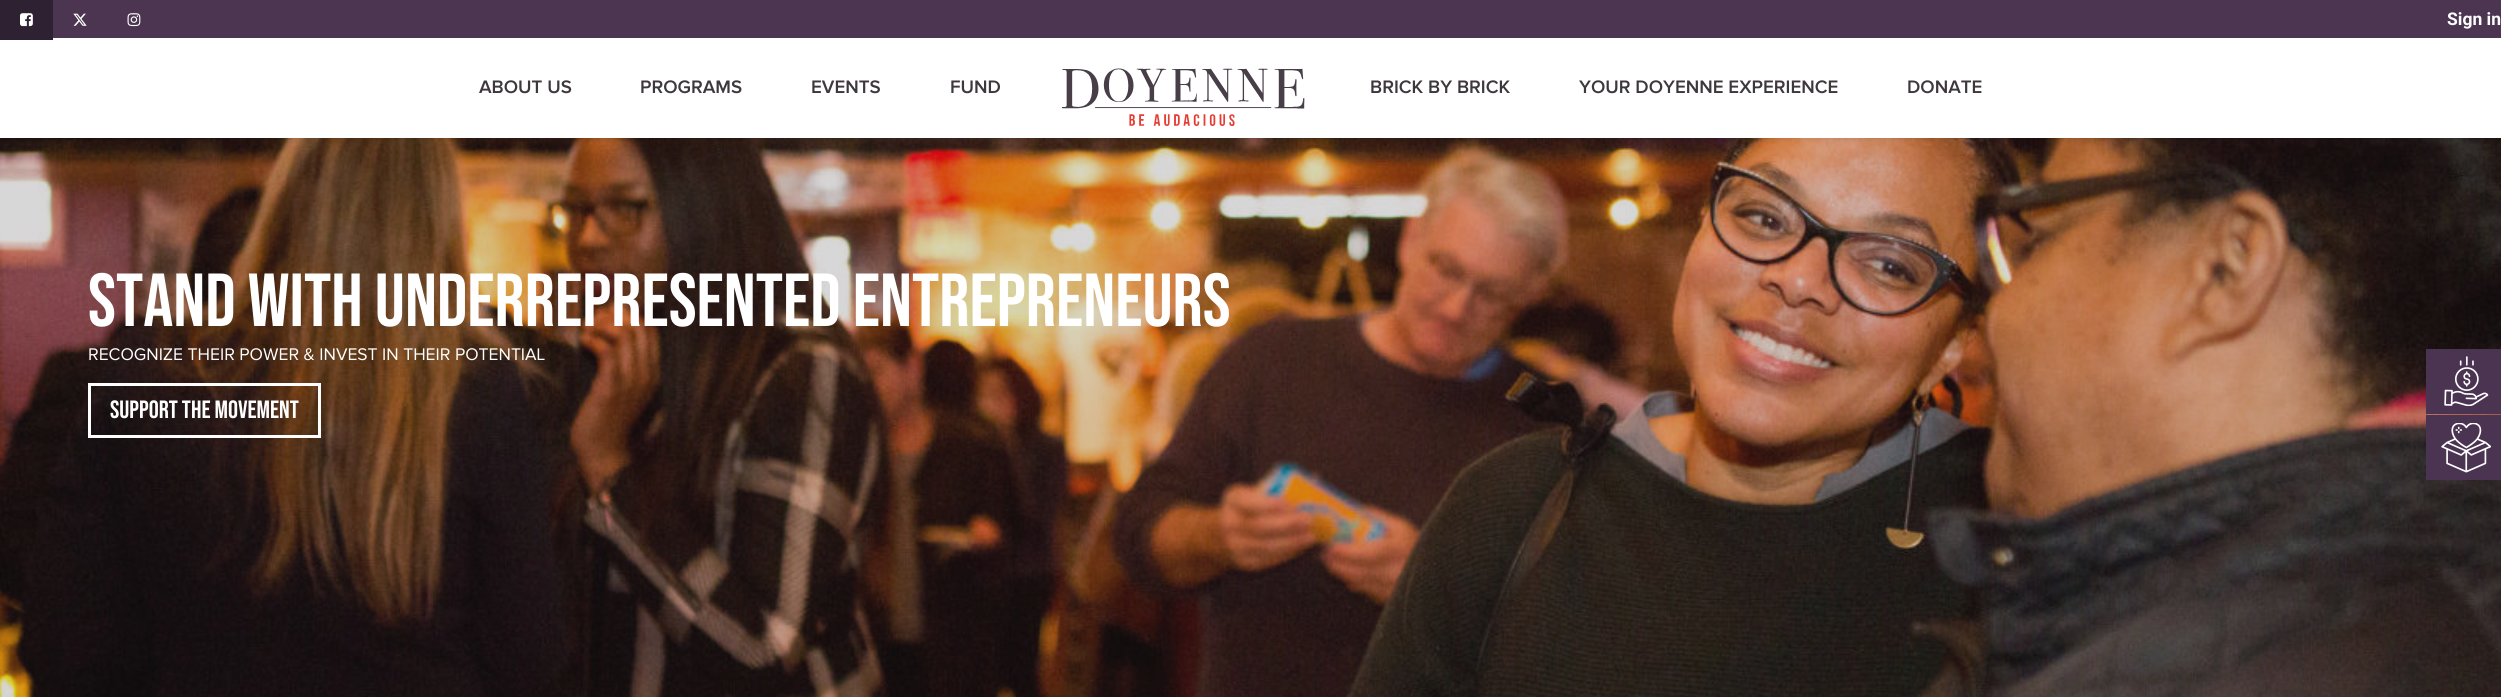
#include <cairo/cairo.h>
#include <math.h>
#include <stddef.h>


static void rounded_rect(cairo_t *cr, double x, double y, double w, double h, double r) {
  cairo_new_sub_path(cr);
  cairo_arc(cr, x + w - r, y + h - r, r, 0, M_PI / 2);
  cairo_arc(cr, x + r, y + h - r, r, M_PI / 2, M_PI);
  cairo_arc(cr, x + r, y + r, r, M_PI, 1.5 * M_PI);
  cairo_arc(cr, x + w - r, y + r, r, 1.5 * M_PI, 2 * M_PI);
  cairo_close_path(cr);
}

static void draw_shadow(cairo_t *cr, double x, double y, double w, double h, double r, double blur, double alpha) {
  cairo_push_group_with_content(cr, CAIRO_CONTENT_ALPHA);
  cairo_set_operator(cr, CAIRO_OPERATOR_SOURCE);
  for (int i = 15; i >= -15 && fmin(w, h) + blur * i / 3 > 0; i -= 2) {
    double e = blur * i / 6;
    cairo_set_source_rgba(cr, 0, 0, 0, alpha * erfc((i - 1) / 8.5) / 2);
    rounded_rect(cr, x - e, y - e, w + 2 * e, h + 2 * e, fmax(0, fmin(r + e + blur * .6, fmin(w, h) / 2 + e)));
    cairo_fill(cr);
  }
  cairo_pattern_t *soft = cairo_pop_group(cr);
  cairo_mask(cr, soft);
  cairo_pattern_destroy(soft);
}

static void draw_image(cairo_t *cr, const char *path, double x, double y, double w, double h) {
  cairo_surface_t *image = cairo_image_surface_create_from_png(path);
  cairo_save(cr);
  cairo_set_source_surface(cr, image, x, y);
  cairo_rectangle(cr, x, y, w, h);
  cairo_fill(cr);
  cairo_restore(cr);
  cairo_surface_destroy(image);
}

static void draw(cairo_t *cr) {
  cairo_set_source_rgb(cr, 1, 1, 1);
  cairo_paint(cr);
  draw_image(cr, "images/5.png", 0, 138, 2501, 559);
  cairo_set_source_rgb(cr, 0, 0, 0);
  draw_shadow(cr, 0, 40, 2501, 100, 0, 2.5, 0.07);
  cairo_set_source_rgb(cr, 75 / 255.0, 53 / 255.0, 81 / 255.0);
  cairo_rectangle(cr, 53, 0, 2448, 38);
  cairo_fill(cr);
  cairo_set_source_rgb(cr, 1, 1, 1);
  cairo_rectangle(cr, 0, 38, 2501, 100);
  cairo_fill(cr);
  cairo_set_source_rgb(cr, 46 / 255.0, 33 / 255.0, 50 / 255.0);
  cairo_rectangle(cr, 0, 0, 53, 40);
  cairo_fill(cr);
  draw_image(cr, "images/1.png", 20, 13, 13, 14);
  draw_image(cr, "images/2.png", 73, 13, 14, 13);
  draw_image(cr, "images/3.png", 127, 13, 14, 14);
  draw_image(cr, "images/4.png", 1061, 68, 244, 58);
  cairo_rectangle(cr, 89.5, 384.5, 230, 52);
  cairo_set_source_rgb(cr, 1, 1, 1);
  cairo_set_line_width(cr, 3);
  cairo_stroke(cr);
  cairo_set_source_rgb(cr, 75 / 255.0, 52 / 255.0, 82 / 255.0);
  cairo_rectangle(cr, 2426, 349, 75, 65);
  cairo_fill(cr);
  draw_image(cr, "images/6.png", 2444, 356, 45, 50);
  cairo_rectangle(cr, 2426, 415, 75, 65);
  cairo_fill(cr);
  draw_image(cr, "images/7.png", 2441, 423, 50, 50);
  cairo_select_font_face(cr, "Roboto", CAIRO_FONT_SLANT_NORMAL, CAIRO_FONT_WEIGHT_BOLD);
  cairo_set_font_size(cr, 17.5);
  cairo_set_source_rgb(cr, 1, 1, 1);
  cairo_move_to(cr, 2447, 25);
  cairo_show_text(cr, "Sign in");
  cairo_select_font_face(cr, "Proxima Nova SemiBold", CAIRO_FONT_SLANT_NORMAL, CAIRO_FONT_WEIGHT_NORMAL);
  cairo_set_font_size(cr, 18.75);
  cairo_set_source_rgb(cr, 62 / 255.0, 56 / 255.0, 61 / 255.0);
  cairo_move_to(cr, 479, 93);
  cairo_show_text(cr, "ABOUT US");
  cairo_move_to(cr, 640, 93);
  cairo_show_text(cr, "PROGRAMS");
  cairo_move_to(cr, 811, 93);
  cairo_show_text(cr, "EVENTS");
  cairo_move_to(cr, 950, 93);
  cairo_show_text(cr, "FUND");
  cairo_move_to(cr, 1370, 93);
  cairo_show_text(cr, "BRICK BY BRICK");
  cairo_move_to(cr, 1579, 93);
  cairo_show_text(cr, "YOUR DOYENNE EXPERIENCE");
  cairo_move_to(cr, 1907, 93);
  cairo_show_text(cr, "DONATE");
  cairo_select_font_face(cr, "Bebas Neue", CAIRO_FONT_SLANT_NORMAL, CAIRO_FONT_WEIGHT_NORMAL);
  cairo_set_font_size(cr, 75);
  cairo_set_source_rgb(cr, 1, 1, 1);
  cairo_move_to(cr, 88, 326);
  cairo_show_text(cr, "Stand with underrepresented Entrepreneurs");
  cairo_select_font_face(cr, "Proxima Nova", CAIRO_FONT_SLANT_NORMAL, CAIRO_FONT_WEIGHT_NORMAL);
  cairo_set_font_size(cr, 17.5);
  cairo_move_to(cr, 88, 360);
  cairo_show_text(cr, "RECOGNIZE THEIR POWER & INVEST IN THEIR POTENTIAL");
  cairo_select_font_face(cr, "Bebas Neue", CAIRO_FONT_SLANT_NORMAL, CAIRO_FONT_WEIGHT_NORMAL);
  cairo_set_font_size(cr, 25);
  cairo_move_to(cr, 110, 418);
  cairo_show_text(cr, "SUPPORT THE MOVEMENT");
}

int main(void) {
  cairo_surface_t *surface = cairo_image_surface_create(CAIRO_FORMAT_RGB24, 2501, 697);
  cairo_t *cr = cairo_create(surface);
  cairo_font_options_t *options = cairo_font_options_create();
  cairo_font_options_set_hint_metrics(options, CAIRO_HINT_METRICS_OFF);
  cairo_font_options_set_hint_style(options, CAIRO_HINT_STYLE_NONE);
  cairo_set_font_options(cr, options);
  cairo_set_miter_limit(cr, 4);
  draw(cr);
  cairo_surface_write_to_png(surface, "out.png");
  cairo_font_options_destroy(options);
  cairo_destroy(cr);
  cairo_surface_destroy(surface);
  return 0;
}
